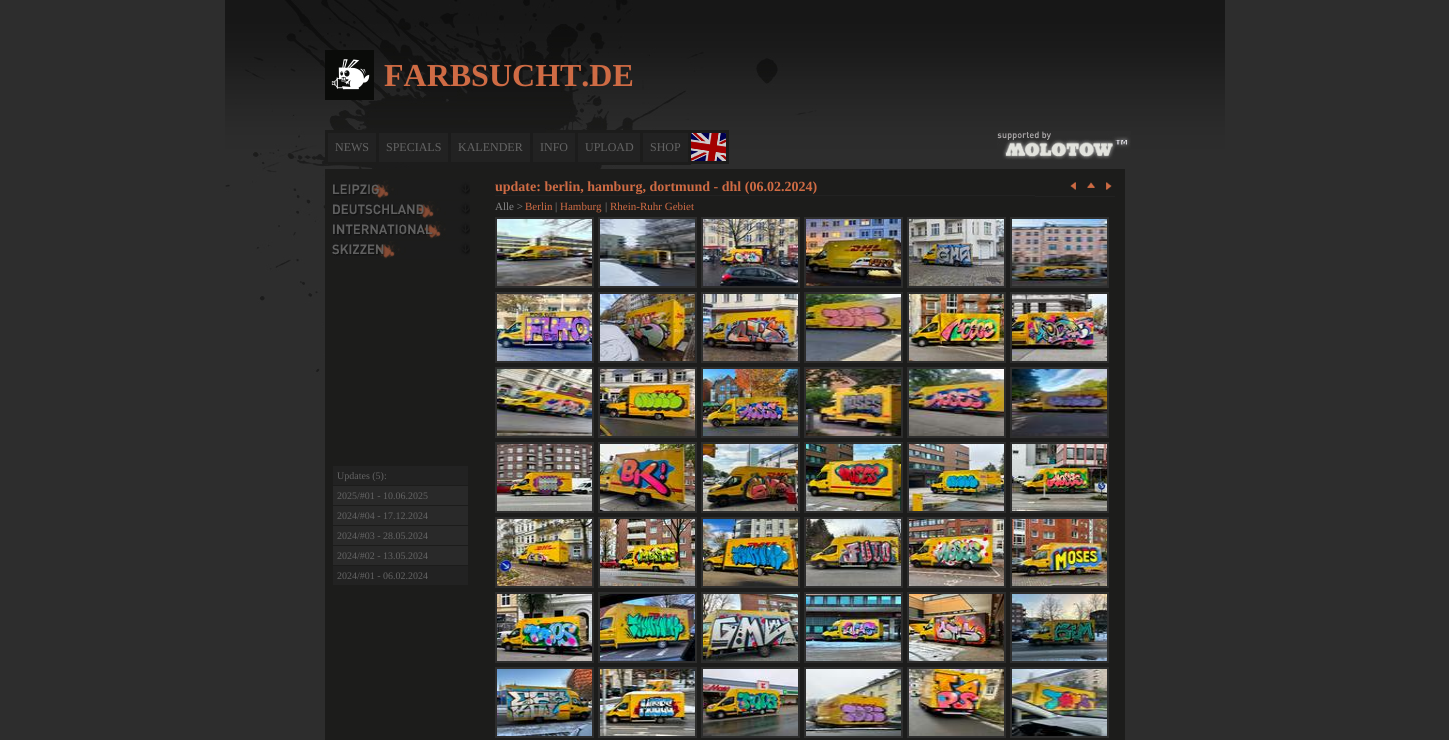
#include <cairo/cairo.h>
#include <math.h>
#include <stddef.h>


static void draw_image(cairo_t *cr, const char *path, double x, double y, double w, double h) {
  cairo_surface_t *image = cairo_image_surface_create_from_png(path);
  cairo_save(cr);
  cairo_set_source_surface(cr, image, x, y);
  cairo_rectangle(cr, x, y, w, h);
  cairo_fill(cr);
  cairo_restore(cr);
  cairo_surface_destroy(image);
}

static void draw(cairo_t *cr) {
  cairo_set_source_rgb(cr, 45 / 255.0, 45 / 255.0, 45 / 255.0);
  cairo_paint(cr);
  draw_image(cr, "images/1.png", 225, 0, 1000, 395);
  draw_image(cr, "images/2.png", 325, 50, 49, 50);
  cairo_set_source_rgb(cr, 28 / 255.0, 28 / 255.0, 27 / 255.0);
  cairo_rectangle(cr, 325, 130, 3, 34);
  cairo_fill(cr);
  cairo_set_source_rgb(cr, 34 / 255.0, 34 / 255.0, 34 / 255.0);
  cairo_rectangle(cr, 328, 133, 48, 29);
  cairo_fill(cr);
  cairo_set_source_rgb(cr, 28 / 255.0, 28 / 255.0, 27 / 255.0);
  cairo_rectangle(cr, 328, 130, 51, 3);
  cairo_fill(cr);
  cairo_rectangle(cr, 376, 130, 3, 19);
  cairo_fill(cr);
  cairo_rectangle(cr, 328, 162, 51, 3);
  cairo_fill(cr);
  cairo_set_source_rgb(cr, 34 / 255.0, 34 / 255.0, 34 / 255.0);
  cairo_rectangle(cr, 379, 133, 69, 29);
  cairo_fill(cr);
  cairo_set_source_rgb(cr, 28 / 255.0, 28 / 255.0, 27 / 255.0);
  cairo_rectangle(cr, 400, 162, 3, 1);
  cairo_fill(cr);
  cairo_set_source_rgb(cr, 34 / 255.0, 34 / 255.0, 34 / 255.0);
  cairo_rectangle(cr, 451, 133, 79, 29);
  cairo_fill(cr);
  cairo_rectangle(cr, 533, 133, 42, 29);
  cairo_fill(cr);
  cairo_set_source_rgb(cr, 28 / 255.0, 28 / 255.0, 27 / 255.0);
  cairo_rectangle(cr, 546, 130, 183, 3);
  cairo_fill(cr);
  cairo_rectangle(cr, 575, 130, 3, 14);
  cairo_fill(cr);
  cairo_set_source_rgb(cr, 34 / 255.0, 34 / 255.0, 34 / 255.0);
  cairo_rectangle(cr, 578, 133, 62, 29);
  cairo_fill(cr);
  cairo_set_source_rgb(cr, 28 / 255.0, 28 / 255.0, 27 / 255.0);
  cairo_rectangle(cr, 640, 130, 3, 35);
  cairo_fill(cr);
  cairo_rectangle(cr, 600, 162, 43, 3);
  cairo_fill(cr);
  cairo_set_source_rgb(cr, 34 / 255.0, 34 / 255.0, 34 / 255.0);
  cairo_rectangle(cr, 643, 133, 45, 29);
  cairo_fill(cr);
  cairo_set_source_rgb(cr, 28 / 255.0, 28 / 255.0, 27 / 255.0);
  cairo_rectangle(cr, 688, 130, 3, 35);
  cairo_fill(cr);
  cairo_rectangle(cr, 643, 162, 48, 3);
  cairo_fill(cr);
  draw_image(cr, "images/3.png", 691, 133, 35, 28);
  cairo_rectangle(cr, 726, 130, 3, 34);
  cairo_fill(cr);
  cairo_rectangle(cr, 691, 161, 38, 3);
  cairo_fill(cr);
  draw_image(cr, "images/4.png", 997, 131, 134, 29);
  cairo_rectangle(cr, 325, 169, 800, 571);
  cairo_fill(cr);
  cairo_set_source_rgb(cr, 34 / 255.0, 34 / 255.0, 34 / 255.0);
  cairo_rectangle(cr, 495, 195, 540, 1);
  cairo_fill(cr);
  cairo_rectangle(cr, 1035, 196, 80, 1);
  cairo_fill(cr);
  draw_image(cr, "images/5.png", 1070, 182, 6, 8);
  draw_image(cr, "images/6.png", 1087, 182, 8, 6);
  draw_image(cr, "images/7.png", 1106, 182, 6, 8);
  cairo_set_source_rgb(cr, 45 / 255.0, 45 / 255.0, 45 / 255.0);
  cairo_rectangle(cr, 495, 217, 99, 71);
  cairo_fill(cr);
  draw_image(cr, "images/8.png", 497, 219, 95, 67);
  cairo_rectangle(cr, 598, 217, 99, 71);
  cairo_fill(cr);
  draw_image(cr, "images/9.png", 600, 219, 95, 67);
  cairo_rectangle(cr, 701, 217, 99, 71);
  cairo_fill(cr);
  draw_image(cr, "images/10.png", 703, 219, 95, 67);
  cairo_rectangle(cr, 804, 217, 99, 71);
  cairo_fill(cr);
  draw_image(cr, "images/11.png", 806, 219, 95, 67);
  cairo_rectangle(cr, 907, 217, 99, 71);
  cairo_fill(cr);
  draw_image(cr, "images/12.png", 909, 219, 95, 67);
  cairo_rectangle(cr, 1010, 217, 99, 71);
  cairo_fill(cr);
  draw_image(cr, "images/13.png", 1012, 219, 95, 67);
  cairo_rectangle(cr, 495, 292, 99, 71);
  cairo_fill(cr);
  draw_image(cr, "images/14.png", 497, 294, 95, 67);
  cairo_rectangle(cr, 598, 292, 99, 71);
  cairo_fill(cr);
  draw_image(cr, "images/15.png", 600, 294, 95, 67);
  cairo_rectangle(cr, 701, 292, 99, 71);
  cairo_fill(cr);
  draw_image(cr, "images/16.png", 703, 294, 95, 67);
  cairo_rectangle(cr, 804, 292, 99, 71);
  cairo_fill(cr);
  draw_image(cr, "images/17.png", 806, 294, 95, 67);
  cairo_rectangle(cr, 907, 292, 99, 71);
  cairo_fill(cr);
  draw_image(cr, "images/18.png", 909, 294, 95, 67);
  cairo_rectangle(cr, 1010, 292, 99, 71);
  cairo_fill(cr);
  draw_image(cr, "images/19.png", 1012, 294, 95, 67);
  cairo_rectangle(cr, 495, 367, 99, 71);
  cairo_fill(cr);
  draw_image(cr, "images/20.png", 497, 369, 95, 67);
  cairo_rectangle(cr, 598, 367, 99, 71);
  cairo_fill(cr);
  draw_image(cr, "images/21.png", 600, 369, 95, 67);
  cairo_rectangle(cr, 701, 367, 99, 71);
  cairo_fill(cr);
  draw_image(cr, "images/22.png", 703, 369, 95, 67);
  cairo_rectangle(cr, 804, 367, 99, 71);
  cairo_fill(cr);
  draw_image(cr, "images/23.png", 806, 369, 95, 67);
  cairo_rectangle(cr, 907, 367, 99, 71);
  cairo_fill(cr);
  draw_image(cr, "images/24.png", 909, 369, 95, 67);
  cairo_rectangle(cr, 1010, 367, 99, 71);
  cairo_fill(cr);
  draw_image(cr, "images/25.png", 1012, 369, 95, 67);
  cairo_rectangle(cr, 495, 442, 99, 71);
  cairo_fill(cr);
  draw_image(cr, "images/26.png", 497, 444, 95, 67);
  cairo_rectangle(cr, 598, 442, 99, 71);
  cairo_fill(cr);
  draw_image(cr, "images/27.png", 600, 444, 95, 67);
  cairo_rectangle(cr, 701, 442, 99, 71);
  cairo_fill(cr);
  draw_image(cr, "images/28.png", 703, 444, 95, 67);
  cairo_rectangle(cr, 804, 442, 99, 71);
  cairo_fill(cr);
  draw_image(cr, "images/29.png", 806, 444, 95, 67);
  cairo_rectangle(cr, 907, 442, 99, 71);
  cairo_fill(cr);
  draw_image(cr, "images/30.png", 909, 444, 95, 67);
  cairo_rectangle(cr, 1010, 442, 99, 71);
  cairo_fill(cr);
  draw_image(cr, "images/31.png", 1012, 444, 95, 67);
  cairo_rectangle(cr, 495, 517, 99, 71);
  cairo_fill(cr);
  draw_image(cr, "images/32.png", 497, 519, 95, 67);
  cairo_rectangle(cr, 598, 517, 99, 71);
  cairo_fill(cr);
  draw_image(cr, "images/33.png", 600, 519, 95, 67);
  cairo_rectangle(cr, 701, 517, 99, 71);
  cairo_fill(cr);
  draw_image(cr, "images/34.png", 703, 519, 95, 67);
  cairo_rectangle(cr, 804, 517, 99, 71);
  cairo_fill(cr);
  draw_image(cr, "images/35.png", 806, 519, 95, 67);
  cairo_rectangle(cr, 907, 517, 99, 71);
  cairo_fill(cr);
  draw_image(cr, "images/36.png", 909, 519, 95, 67);
  cairo_rectangle(cr, 1010, 517, 99, 71);
  cairo_fill(cr);
  draw_image(cr, "images/37.png", 1012, 519, 95, 67);
  cairo_rectangle(cr, 495, 592, 99, 71);
  cairo_fill(cr);
  draw_image(cr, "images/38.png", 497, 594, 95, 67);
  cairo_rectangle(cr, 598, 592, 99, 71);
  cairo_fill(cr);
  draw_image(cr, "images/39.png", 600, 594, 95, 67);
  cairo_rectangle(cr, 701, 592, 99, 71);
  cairo_fill(cr);
  draw_image(cr, "images/40.png", 703, 594, 95, 67);
  cairo_rectangle(cr, 804, 592, 99, 71);
  cairo_fill(cr);
  draw_image(cr, "images/41.png", 806, 594, 95, 67);
  cairo_rectangle(cr, 907, 592, 99, 71);
  cairo_fill(cr);
  draw_image(cr, "images/42.png", 909, 594, 95, 67);
  cairo_rectangle(cr, 1010, 592, 99, 71);
  cairo_fill(cr);
  draw_image(cr, "images/43.png", 1012, 594, 95, 67);
  cairo_rectangle(cr, 495, 667, 99, 71);
  cairo_fill(cr);
  draw_image(cr, "images/44.png", 497, 669, 95, 67);
  cairo_rectangle(cr, 598, 667, 99, 71);
  cairo_fill(cr);
  draw_image(cr, "images/45.png", 600, 669, 95, 67);
  cairo_rectangle(cr, 701, 667, 99, 71);
  cairo_fill(cr);
  draw_image(cr, "images/46.png", 703, 669, 95, 67);
  cairo_rectangle(cr, 804, 667, 99, 71);
  cairo_fill(cr);
  draw_image(cr, "images/47.png", 806, 669, 95, 67);
  cairo_rectangle(cr, 907, 667, 99, 71);
  cairo_fill(cr);
  draw_image(cr, "images/48.png", 909, 669, 95, 67);
  cairo_rectangle(cr, 1010, 667, 99, 71);
  cairo_fill(cr);
  draw_image(cr, "images/49.png", 1012, 669, 95, 67);
  draw_image(cr, "images/50.png", 333, 180, 137, 19);
  draw_image(cr, "images/51.png", 333, 201, 137, 18);
  draw_image(cr, "images/52.png", 333, 221, 137, 18);
  draw_image(cr, "images/53.png", 332, 241, 138, 18);
  cairo_set_source_rgb(cr, 34 / 255.0, 34 / 255.0, 34 / 255.0);
  cairo_rectangle(cr, 333, 466, 135, 19);
  cairo_fill(cr);
  cairo_set_source_rgb(cr, 41 / 255.0, 41 / 255.0, 41 / 255.0);
  cairo_rectangle(cr, 333, 486, 135, 19);
  cairo_fill(cr);
  cairo_rectangle(cr, 333, 506, 135, 19);
  cairo_fill(cr);
  cairo_rectangle(cr, 333, 526, 135, 19);
  cairo_fill(cr);
  cairo_rectangle(cr, 333, 546, 135, 19);
  cairo_fill(cr);
  cairo_set_source_rgb(cr, 34 / 255.0, 34 / 255.0, 34 / 255.0);
  cairo_rectangle(cr, 333, 566, 135, 19);
  cairo_fill(cr);
  cairo_select_font_face(cr, "Liberation Serif", CAIRO_FONT_SLANT_NORMAL, CAIRO_FONT_WEIGHT_BOLD);
  cairo_set_font_size(cr, 32);
  cairo_set_source_rgb(cr, 207 / 255.0, 107 / 255.0, 68 / 255.0);
  cairo_move_to(cr, 384, 86);
  cairo_show_text(cr, "FARBSUCHT.DE");
  cairo_select_font_face(cr, "Liberation Serif", CAIRO_FONT_SLANT_NORMAL, CAIRO_FONT_WEIGHT_NORMAL);
  cairo_set_font_size(cr, 12);
  cairo_set_source_rgb(cr, 100 / 255.0, 100 / 255.0, 100 / 255.0);
  cairo_move_to(cr, 335, 151);
  cairo_show_text(cr, "NEWS");
  cairo_move_to(cr, 386, 151);
  cairo_show_text(cr, "SPECIALS");
  cairo_move_to(cr, 458, 151);
  cairo_show_text(cr, "KALENDER");
  cairo_move_to(cr, 540, 151);
  cairo_show_text(cr, "INFO");
  cairo_move_to(cr, 585, 151);
  cairo_show_text(cr, "UPLOAD");
  cairo_move_to(cr, 650, 151);
  cairo_show_text(cr, "SHOP");
  cairo_select_font_face(cr, "Liberation Serif", CAIRO_FONT_SLANT_NORMAL, CAIRO_FONT_WEIGHT_BOLD);
  cairo_set_font_size(cr, 14);
  cairo_set_source_rgb(cr, 207 / 255.0, 107 / 255.0, 68 / 255.0);
  cairo_move_to(cr, 495, 191);
  cairo_show_text(cr, "update: berlin, hamburg, dortmund - dhl (06.02.2024)");
  cairo_select_font_face(cr, "Liberation Serif", CAIRO_FONT_SLANT_NORMAL, CAIRO_FONT_WEIGHT_NORMAL);
  cairo_set_font_size(cr, 11);
  cairo_set_source_rgb(cr, 135 / 255.0, 135 / 255.0, 136 / 255.0);
  cairo_move_to(cr, 495, 210);
  cairo_show_text(cr, "Alle >");
  cairo_set_source_rgb(cr, 207 / 255.0, 107 / 255.0, 68 / 255.0);
  cairo_move_to(cr, 525, 210);
  cairo_show_text(cr, "Berlin");
  cairo_set_source_rgb(cr, 135 / 255.0, 135 / 255.0, 136 / 255.0);
  cairo_move_to(cr, 555, 210);
  cairo_show_text(cr, "|");
  cairo_set_source_rgb(cr, 207 / 255.0, 107 / 255.0, 68 / 255.0);
  cairo_move_to(cr, 560, 210);
  cairo_show_text(cr, "Hamburg");
  cairo_set_source_rgb(cr, 135 / 255.0, 135 / 255.0, 136 / 255.0);
  cairo_move_to(cr, 605, 210);
  cairo_show_text(cr, "|");
  cairo_set_source_rgb(cr, 207 / 255.0, 107 / 255.0, 68 / 255.0);
  cairo_move_to(cr, 610, 210);
  cairo_show_text(cr, "Rhein-Ruhr Gebiet");
  cairo_set_font_size(cr, 10);
  cairo_set_source_rgb(cr, 100 / 255.0, 100 / 255.0, 100 / 255.0);
  cairo_move_to(cr, 337, 479);
  cairo_show_text(cr, "Updates (5):");
  cairo_move_to(cr, 337, 499);
  cairo_show_text(cr, "2025/#01 - 10.06.2025");
  cairo_move_to(cr, 337, 519);
  cairo_show_text(cr, "2024/#04 - 17.12.2024");
  cairo_move_to(cr, 337, 539);
  cairo_show_text(cr, "2024/#03 - 28.05.2024");
  cairo_move_to(cr, 337, 559);
  cairo_show_text(cr, "2024/#02 - 13.05.2024");
  cairo_move_to(cr, 337, 579);
  cairo_show_text(cr, "2024/#01 - 06.02.2024");
}

int main(void) {
  cairo_surface_t *surface = cairo_image_surface_create(CAIRO_FORMAT_RGB24, 1449, 740);
  cairo_t *cr = cairo_create(surface);
  cairo_font_options_t *options = cairo_font_options_create();
  cairo_font_options_set_hint_metrics(options, CAIRO_HINT_METRICS_OFF);
  cairo_font_options_set_hint_style(options, CAIRO_HINT_STYLE_NONE);
  cairo_set_font_options(cr, options);
  cairo_set_miter_limit(cr, 4);
  draw(cr);
  cairo_surface_write_to_png(surface, "out.png");
  cairo_font_options_destroy(options);
  cairo_destroy(cr);
  cairo_surface_destroy(surface);
  return 0;
}
